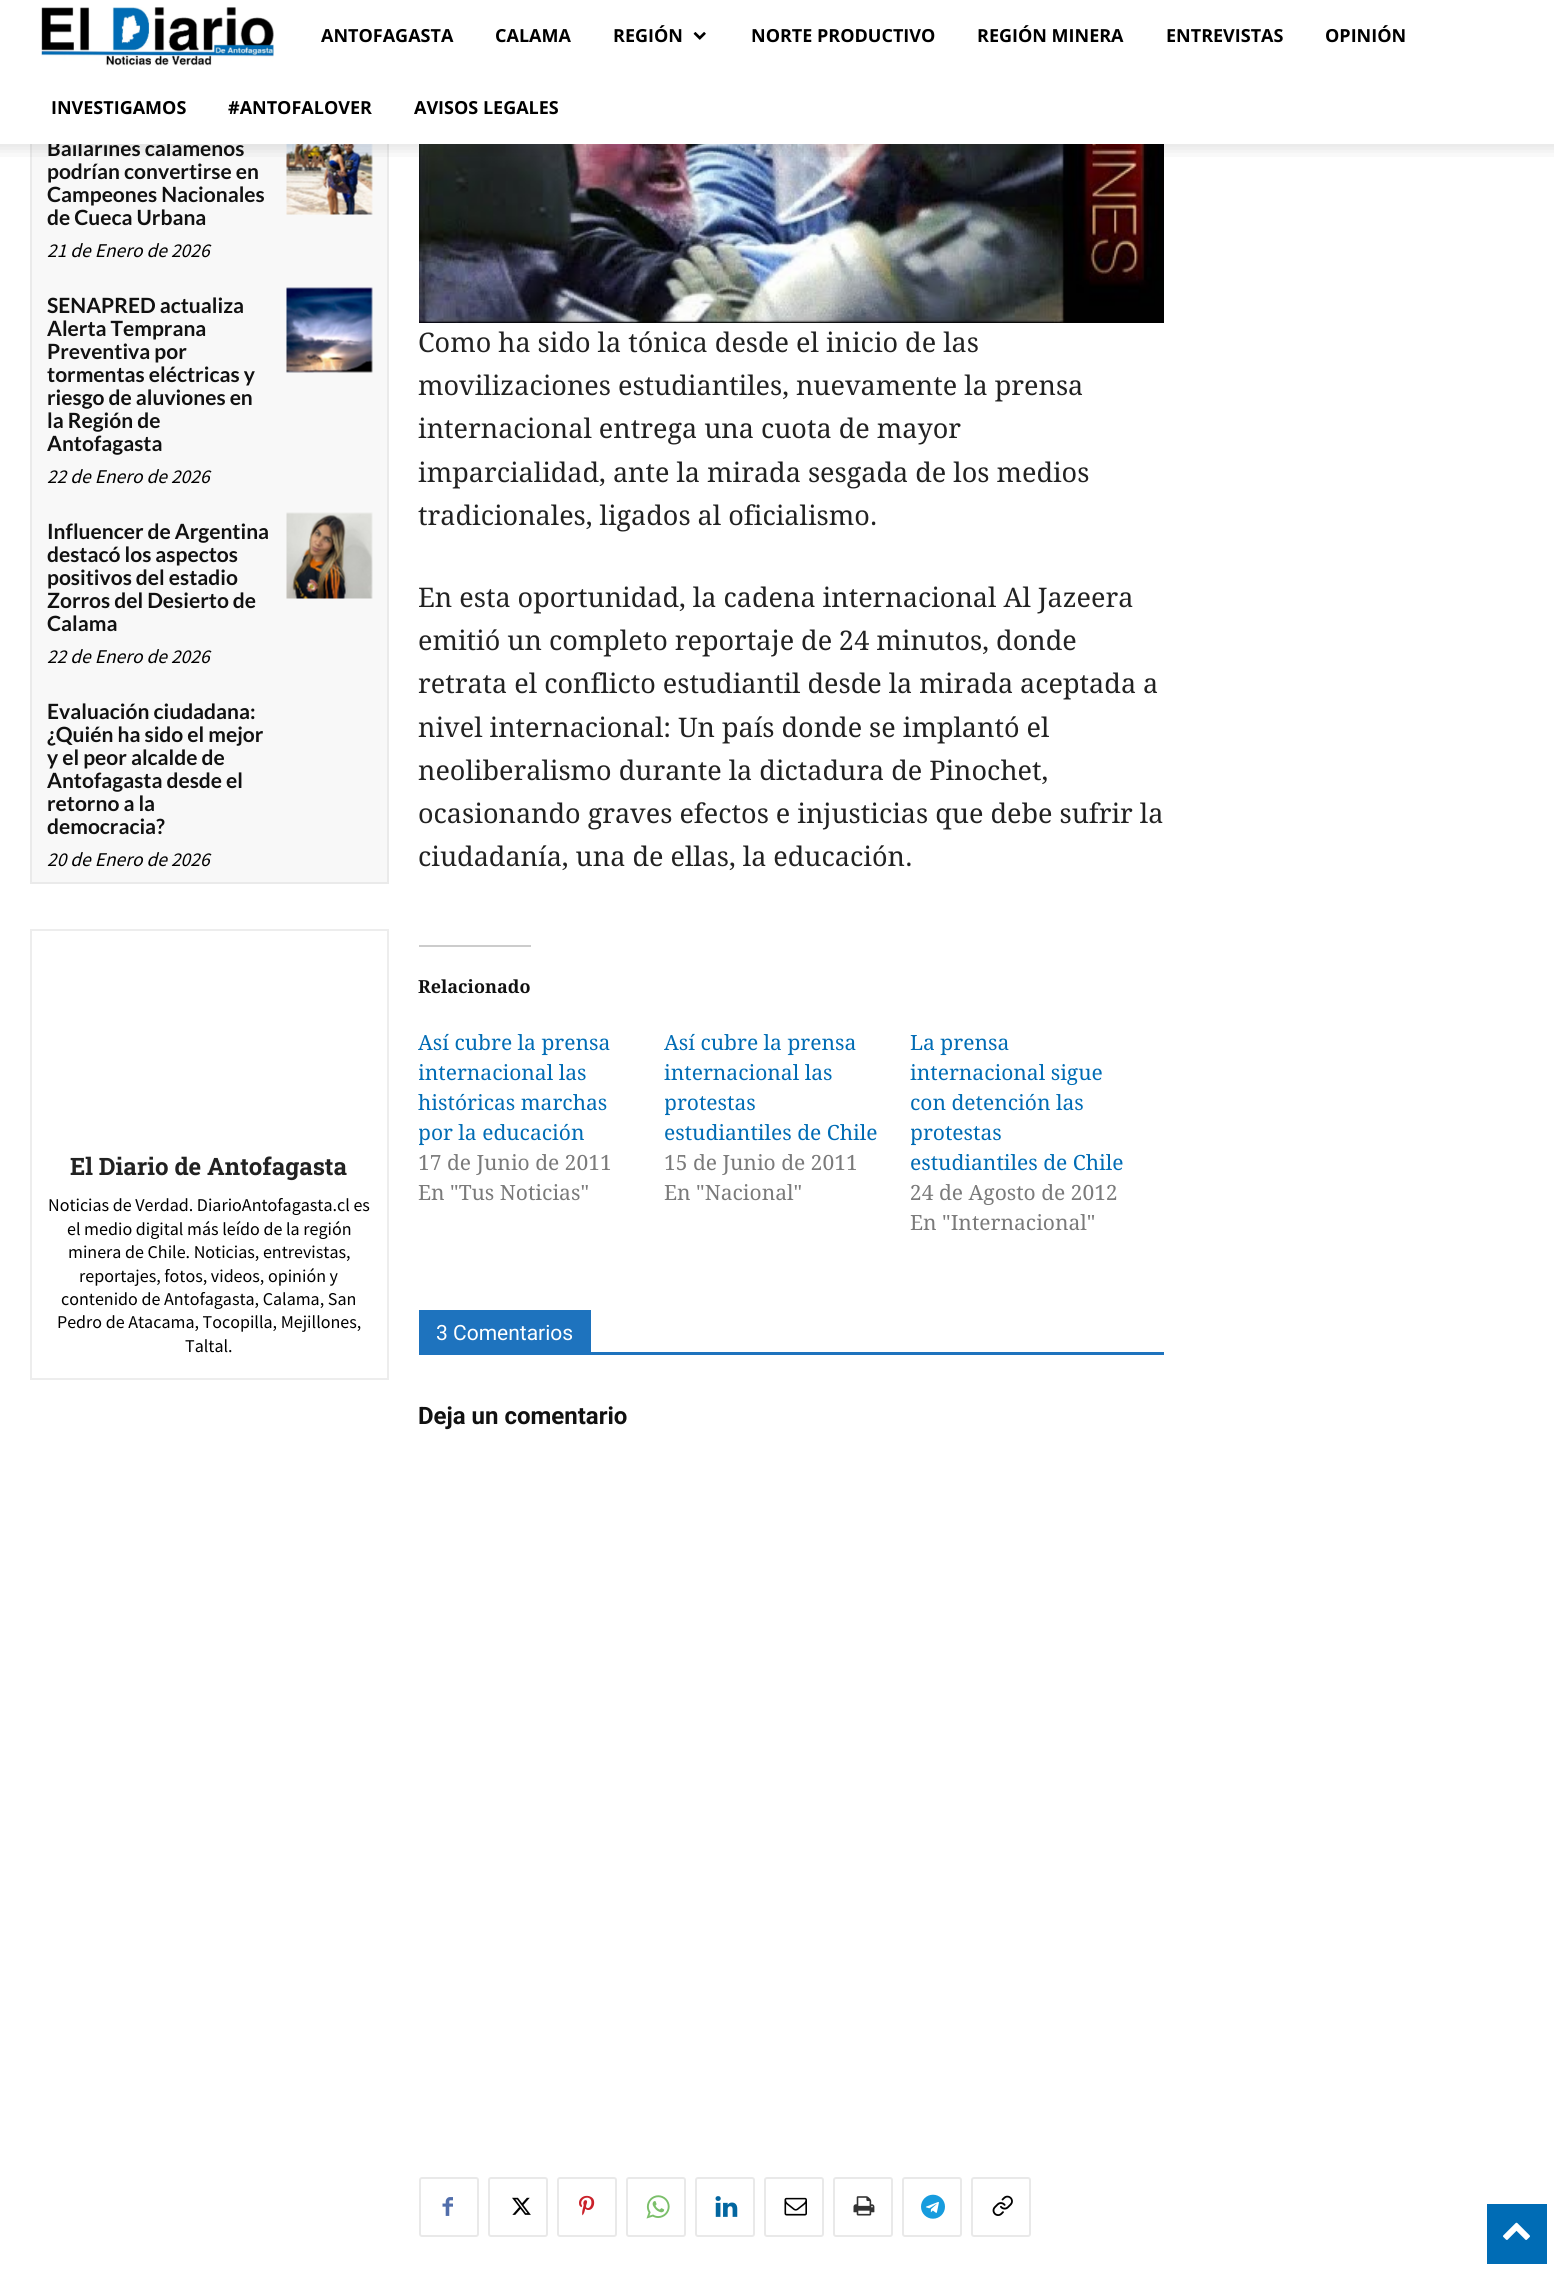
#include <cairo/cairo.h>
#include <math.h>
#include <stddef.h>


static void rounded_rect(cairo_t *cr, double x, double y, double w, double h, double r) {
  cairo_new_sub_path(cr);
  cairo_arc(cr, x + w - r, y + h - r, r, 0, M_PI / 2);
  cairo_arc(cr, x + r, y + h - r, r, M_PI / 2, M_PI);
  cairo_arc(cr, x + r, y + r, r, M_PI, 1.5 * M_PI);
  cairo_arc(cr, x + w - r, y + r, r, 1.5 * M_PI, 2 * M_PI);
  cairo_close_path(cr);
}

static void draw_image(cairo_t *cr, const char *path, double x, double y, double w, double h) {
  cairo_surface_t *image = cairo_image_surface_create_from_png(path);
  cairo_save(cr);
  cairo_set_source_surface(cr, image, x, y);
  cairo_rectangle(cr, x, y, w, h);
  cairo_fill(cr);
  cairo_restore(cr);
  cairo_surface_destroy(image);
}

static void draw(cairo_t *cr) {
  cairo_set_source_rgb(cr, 1, 1, 1);
  cairo_paint(cr);
  draw_image(cr, "images/2.png", 693, 32, 13, 8);
  cairo_rectangle(cr, 31, 31, 357, 852);
  cairo_set_source_rgb(cr, 234 / 255.0, 234 / 255.0, 234 / 255.0);
  cairo_stroke(cr);
  cairo_set_source_rgb(cr, 248 / 255.0, 248 / 255.0, 248 / 255.0);
  cairo_rectangle(cr, 32, 144, 355, 738);
  cairo_fill(cr);
  draw_image(cr, "images/4.png", 286, 144, 87, 71);
  draw_image(cr, "images/5.png", 286, 287, 87, 86);
  draw_image(cr, "images/6.png", 286, 512, 87, 87);
  cairo_rectangle(cr, 31, 930, 357, 449);
  cairo_set_source_rgb(cr, 237 / 255.0, 237 / 255.0, 237 / 255.0);
  cairo_stroke(cr);
  draw_image(cr, "images/7.png", 419, 144, 745, 179);
  cairo_set_source_rgb(cr, 204 / 255.0, 204 / 255.0, 204 / 255.0);
  cairo_rectangle(cr, 419, 945, 112, 2);
  cairo_fill(cr);
  cairo_set_source_rgb(cr, 30 / 255.0, 115 / 255.0, 190 / 255.0);
  cairo_rectangle(cr, 419, 1352, 745, 3);
  cairo_fill(cr);
  cairo_rectangle(cr, 419, 1310, 172, 42);
  cairo_fill(cr);
  rounded_rect(cr, 420, 2178, 58, 58, 2);
  cairo_set_source_rgb(cr, 233 / 255.0, 233 / 255.0, 233 / 255.0);
  cairo_stroke(cr);
  draw_image(cr, "images/8.png", 442, 2197, 11, 19);
  rounded_rect(cr, 489, 2178, 58, 58, 2);
  cairo_stroke(cr);
  draw_image(cr, "images/9.png", 512, 2197, 19, 18);
  rounded_rect(cr, 558, 2178, 58, 58, 2);
  cairo_stroke(cr);
  draw_image(cr, "images/10.png", 579, 2195, 16, 21);
  rounded_rect(cr, 627, 2178, 58, 58, 2);
  cairo_stroke(cr);
  draw_image(cr, "images/11.png", 646, 2195, 24, 24);
  rounded_rect(cr, 696, 2178, 58, 58, 2);
  cairo_stroke(cr);
  draw_image(cr, "images/12.png", 715, 2196, 23, 21);
  rounded_rect(cr, 765, 2178, 58, 58, 2);
  cairo_stroke(cr);
  draw_image(cr, "images/13.png", 784, 2197, 23, 19);
  rounded_rect(cr, 834, 2178, 58, 58, 2);
  cairo_stroke(cr);
  draw_image(cr, "images/14.png", 853, 2196, 22, 20);
  rounded_rect(cr, 903, 2178, 58, 58, 2);
  cairo_stroke(cr);
  draw_image(cr, "images/15.png", 921, 2194, 24, 25);
  rounded_rect(cr, 972, 2178, 58, 58, 2);
  cairo_stroke(cr);
  draw_image(cr, "images/16.png", 992, 2195, 21, 21);
  cairo_set_source_rgb(cr, 0, 108 / 255.0, 181 / 255.0);
  cairo_rectangle(cr, 1487, 2204, 60, 60);
  cairo_fill(cr);
  draw_image(cr, "images/17.png", 1503, 2222, 27, 18);
  cairo_select_font_face(cr, "Open Sans", CAIRO_FONT_SLANT_NORMAL, CAIRO_FONT_WEIGHT_BOLD);
  cairo_set_font_size(cr, 18);
  cairo_set_source_rgb(cr, 0, 0, 0);
  cairo_move_to(cr, 495, 42);
  cairo_show_text(cr, "CALAMA");
  cairo_move_to(cr, 613, 42);
  cairo_show_text(cr, "REGIÓN");
  cairo_move_to(cr, 751, 42);
  cairo_show_text(cr, "NORTE PRODUCTIVO");
  cairo_move_to(cr, 977, 42);
  cairo_show_text(cr, "REGIÓN MINERA");
  cairo_move_to(cr, 1166, 42);
  cairo_show_text(cr, "ENTREVISTAS");
  cairo_move_to(cr, 1325, 42);
  cairo_show_text(cr, "OPINIÓN");
  cairo_move_to(cr, 414, 114);
  cairo_show_text(cr, "AVISOS LEGALES");
  cairo_select_font_face(cr, "Lato", CAIRO_FONT_SLANT_NORMAL, CAIRO_FONT_WEIGHT_BOLD);
  cairo_set_font_size(cr, 21);
  cairo_set_source_rgb(cr, 17 / 255.0, 17 / 255.0, 17 / 255.0);
  cairo_move_to(cr, 47, 156);
  cairo_show_text(cr, "Bailarines calameños");
  cairo_set_source_rgb(cr, 1, 1, 1);
  cairo_rectangle(cr, 30, 30, 359, 114);
  cairo_fill(cr);
  cairo_select_font_face(cr, "Open Sans", CAIRO_FONT_SLANT_NORMAL, CAIRO_FONT_WEIGHT_BOLD);
  cairo_set_font_size(cr, 18);
  cairo_set_source_rgb(cr, 0, 0, 0);
  cairo_move_to(cr, 228, 114);
  cairo_show_text(cr, "#ANTOFALOVER");
  cairo_move_to(cr, 51, 114);
  cairo_show_text(cr, "INVESTIGAMOS");
  cairo_move_to(cr, 321, 42);
  cairo_show_text(cr, "ANTOFAGASTA");
  draw_image(cr, "images/1.png", 41, 7, 233, 59);
  draw_image(cr, "images/3.png", 0, 144, 1554, 13);
  cairo_select_font_face(cr, "Lato", CAIRO_FONT_SLANT_NORMAL, CAIRO_FONT_WEIGHT_BOLD);
  cairo_set_font_size(cr, 21);
  cairo_set_source_rgb(cr, 17 / 255.0, 17 / 255.0, 17 / 255.0);
  cairo_move_to(cr, 47, 179);
  cairo_show_text(cr, "podrían convertirse en");
  cairo_move_to(cr, 47, 202);
  cairo_show_text(cr, "Campeones Nacionales");
  cairo_move_to(cr, 47, 225);
  cairo_show_text(cr, "de Cueca Urbana");
  cairo_select_font_face(cr, "Source Sans Pro", CAIRO_FONT_SLANT_ITALIC, CAIRO_FONT_WEIGHT_NORMAL);
  cairo_set_font_size(cr, 19.5);
  cairo_set_source_rgb(cr, 0, 0, 0);
  cairo_move_to(cr, 47, 257);
  cairo_show_text(cr, "21 de Enero de 2026");
  cairo_select_font_face(cr, "Lato", CAIRO_FONT_SLANT_NORMAL, CAIRO_FONT_WEIGHT_BOLD);
  cairo_set_font_size(cr, 21);
  cairo_set_source_rgb(cr, 17 / 255.0, 17 / 255.0, 17 / 255.0);
  cairo_move_to(cr, 47, 313);
  cairo_show_text(cr, "SENAPRED actualiza");
  cairo_move_to(cr, 47, 336);
  cairo_show_text(cr, "Alerta Temprana");
  cairo_move_to(cr, 47, 359);
  cairo_show_text(cr, "Preventiva por");
  cairo_move_to(cr, 47, 382);
  cairo_show_text(cr, "tormentas eléctricas y");
  cairo_move_to(cr, 47, 405);
  cairo_show_text(cr, "riesgo de aluviones en");
  cairo_move_to(cr, 47, 428);
  cairo_show_text(cr, "la Región de");
  cairo_move_to(cr, 47, 451);
  cairo_show_text(cr, "Antofagasta");
  cairo_select_font_face(cr, "Source Sans Pro", CAIRO_FONT_SLANT_ITALIC, CAIRO_FONT_WEIGHT_NORMAL);
  cairo_set_font_size(cr, 19.5);
  cairo_set_source_rgb(cr, 0, 0, 0);
  cairo_move_to(cr, 47, 483);
  cairo_show_text(cr, "22 de Enero de 2026");
  cairo_select_font_face(cr, "Lato", CAIRO_FONT_SLANT_NORMAL, CAIRO_FONT_WEIGHT_BOLD);
  cairo_set_font_size(cr, 21);
  cairo_set_source_rgb(cr, 17 / 255.0, 17 / 255.0, 17 / 255.0);
  cairo_move_to(cr, 47, 539);
  cairo_show_text(cr, "Influencer de Argentina");
  cairo_move_to(cr, 47, 562);
  cairo_show_text(cr, "destacó los aspectos");
  cairo_move_to(cr, 47, 585);
  cairo_show_text(cr, "positivos del estadio");
  cairo_move_to(cr, 47, 608);
  cairo_show_text(cr, "Zorros del Desierto de");
  cairo_move_to(cr, 47, 631);
  cairo_show_text(cr, "Calama");
  cairo_select_font_face(cr, "Source Sans Pro", CAIRO_FONT_SLANT_ITALIC, CAIRO_FONT_WEIGHT_NORMAL);
  cairo_set_font_size(cr, 19.5);
  cairo_set_source_rgb(cr, 0, 0, 0);
  cairo_move_to(cr, 47, 663);
  cairo_show_text(cr, "22 de Enero de 2026");
  cairo_select_font_face(cr, "Lato", CAIRO_FONT_SLANT_NORMAL, CAIRO_FONT_WEIGHT_BOLD);
  cairo_set_font_size(cr, 21);
  cairo_set_source_rgb(cr, 17 / 255.0, 17 / 255.0, 17 / 255.0);
  cairo_move_to(cr, 47, 719);
  cairo_show_text(cr, "Evaluación ciudadana:");
  cairo_move_to(cr, 47, 742);
  cairo_show_text(cr, "¿Quién ha sido el mejor");
  cairo_move_to(cr, 47, 765);
  cairo_show_text(cr, "y el peor alcalde de");
  cairo_move_to(cr, 47, 788);
  cairo_show_text(cr, "Antofagasta desde el");
  cairo_move_to(cr, 47, 811);
  cairo_show_text(cr, "retorno a la");
  cairo_move_to(cr, 47, 834);
  cairo_show_text(cr, "democracia?");
  cairo_select_font_face(cr, "Source Sans Pro", CAIRO_FONT_SLANT_ITALIC, CAIRO_FONT_WEIGHT_NORMAL);
  cairo_set_font_size(cr, 19.5);
  cairo_set_source_rgb(cr, 0, 0, 0);
  cairo_move_to(cr, 47, 866);
  cairo_show_text(cr, "20 de Enero de 2026");
  cairo_select_font_face(cr, "Roboto Slab", CAIRO_FONT_SLANT_NORMAL, CAIRO_FONT_WEIGHT_BOLD);
  cairo_set_font_size(cr, 24);
  cairo_set_source_rgb(cr, 34 / 255.0, 34 / 255.0, 34 / 255.0);
  cairo_move_to(cr, 70, 1175);
  cairo_show_text(cr, "El Diario de Antofagasta");
  cairo_select_font_face(cr, "Source Sans Pro", CAIRO_FONT_SLANT_NORMAL, CAIRO_FONT_WEIGHT_NORMAL);
  cairo_set_font_size(cr, 18);
  cairo_set_source_rgb(cr, 0, 0, 0);
  cairo_move_to(cr, 48, 1211);
  cairo_show_text(cr, "Noticias de Verdad. DiarioAntofagasta.cl es");
  cairo_move_to(cr, 67, 1235);
  cairo_show_text(cr, "el medio digital más leído de la región");
  cairo_move_to(cr, 68, 1258);
  cairo_show_text(cr, "minera de Chile. Noticias, entrevistas,");
  cairo_move_to(cr, 79, 1282);
  cairo_show_text(cr, "reportajes, fotos, videos, opinión y");
  cairo_move_to(cr, 61, 1305);
  cairo_show_text(cr, "contenido de Antofagasta, Calama, San");
  cairo_move_to(cr, 57, 1328);
  cairo_show_text(cr, "Pedro de Atacama, Tocopilla, Mejillones,");
  cairo_move_to(cr, 185, 1352);
  cairo_show_text(cr, "Taltal.");
  cairo_select_font_face(cr, "Droid Serif", CAIRO_FONT_SLANT_NORMAL, CAIRO_FONT_WEIGHT_NORMAL);
  cairo_set_font_size(cr, 27);
  cairo_set_source_rgb(cr, 34 / 255.0, 34 / 255.0, 34 / 255.0);
  cairo_move_to(cr, 418, 352);
  cairo_show_text(cr, "Como ha sido la tónica desde el inicio de las");
  cairo_move_to(cr, 418, 395);
  cairo_show_text(cr, "movilizaciones estudiantiles, nuevamente la prensa");
  cairo_move_to(cr, 418, 438);
  cairo_show_text(cr, "internacional entrega una cuota de mayor");
  cairo_move_to(cr, 418, 482);
  cairo_show_text(cr, "imparcialidad, ante la mirada sesgada de los medios");
  cairo_move_to(cr, 418, 525);
  cairo_show_text(cr, "tradicionales, ligados al oficialismo.");
  cairo_move_to(cr, 418, 607);
  cairo_show_text(cr, "En esta oportunidad, la cadena internacional Al Jazeera");
  cairo_move_to(cr, 418, 650);
  cairo_show_text(cr, "emitió un completo reportaje de 24 minutos, donde");
  cairo_move_to(cr, 418, 693);
  cairo_show_text(cr, "retrata el conflicto estudiantil desde la mirada aceptada a");
  cairo_move_to(cr, 418, 737);
  cairo_show_text(cr, "nivel internacional: Un país donde se implantó el");
  cairo_move_to(cr, 418, 780);
  cairo_show_text(cr, "neoliberalismo durante la dictadura de Pinochet,");
  cairo_move_to(cr, 418, 823);
  cairo_show_text(cr, "ocasionando graves efectos e injusticias que debe sufrir la");
  cairo_move_to(cr, 418, 866);
  cairo_show_text(cr, "ciudadanía, una de ellas, la educación.");
  cairo_select_font_face(cr, "Droid Serif", CAIRO_FONT_SLANT_NORMAL, CAIRO_FONT_WEIGHT_BOLD);
  cairo_set_font_size(cr, 18);
  cairo_set_source_rgb(cr, 17 / 255.0, 17 / 255.0, 17 / 255.0);
  cairo_move_to(cr, 418, 993);
  cairo_show_text(cr, "Relacionado");
  cairo_select_font_face(cr, "Droid Serif", CAIRO_FONT_SLANT_NORMAL, CAIRO_FONT_WEIGHT_NORMAL);
  cairo_set_font_size(cr, 21);
  cairo_set_source_rgb(cr, 0, 108 / 255.0, 181 / 255.0);
  cairo_move_to(cr, 418, 1050);
  cairo_show_text(cr, "Así cubre la prensa");
  cairo_save(cr);
  cairo_rectangle(cr, 419, 1028, 220, 120);
  cairo_clip(cr);
  cairo_move_to(cr, 418, 1080);
  cairo_show_text(cr, "internacional las");
  cairo_restore(cr);
  cairo_move_to(cr, 418, 1110);
  cairo_show_text(cr, "históricas marchas");
  cairo_save(cr);
  cairo_rectangle(cr, 419, 1028, 220, 120);
  cairo_clip(cr);
  cairo_move_to(cr, 418, 1140);
  cairo_show_text(cr, "por la educación");
  cairo_restore(cr);
  cairo_set_source_rgb(cr, 122 / 255.0, 122 / 255.0, 122 / 255.0);
  cairo_move_to(cr, 418, 1170);
  cairo_show_text(cr, "17 de Junio de 2011");
  cairo_move_to(cr, 418, 1200);
  cairo_show_text(cr, "En \"Tus Noticias\"");
  cairo_set_source_rgb(cr, 0, 108 / 255.0, 181 / 255.0);
  cairo_move_to(cr, 664, 1050);
  cairo_show_text(cr, "Así cubre la prensa");
  cairo_move_to(cr, 664, 1080);
  cairo_show_text(cr, "internacional las");
  cairo_save(cr);
  cairo_rectangle(cr, 665, 1028, 220, 120);
  cairo_clip(cr);
  cairo_move_to(cr, 664, 1110);
  cairo_show_text(cr, "protestas");
  cairo_restore(cr);
  cairo_move_to(cr, 664, 1140);
  cairo_show_text(cr, "estudiantiles de Chile");
  cairo_set_source_rgb(cr, 122 / 255.0, 122 / 255.0, 122 / 255.0);
  cairo_move_to(cr, 664, 1170);
  cairo_show_text(cr, "15 de Junio de 2011");
  cairo_move_to(cr, 664, 1200);
  cairo_show_text(cr, "En \"Nacional\"");
  cairo_set_source_rgb(cr, 0, 108 / 255.0, 181 / 255.0);
  cairo_move_to(cr, 910, 1050);
  cairo_show_text(cr, "La prensa");
  cairo_move_to(cr, 910, 1080);
  cairo_show_text(cr, "internacional sigue");
  cairo_move_to(cr, 910, 1110);
  cairo_show_text(cr, "con detención las");
  cairo_save(cr);
  cairo_rectangle(cr, 911, 1028, 222, 150);
  cairo_clip(cr);
  cairo_move_to(cr, 910, 1140);
  cairo_show_text(cr, "protestas");
  cairo_restore(cr);
  cairo_move_to(cr, 910, 1170);
  cairo_show_text(cr, "estudiantiles de Chile");
  cairo_set_source_rgb(cr, 122 / 255.0, 122 / 255.0, 122 / 255.0);
  cairo_move_to(cr, 910, 1200);
  cairo_show_text(cr, "24 de Agosto de 2012");
  cairo_move_to(cr, 910, 1230);
  cairo_show_text(cr, "En \"Internacional\"");
  cairo_select_font_face(cr, "Roboto", CAIRO_FONT_SLANT_NORMAL, CAIRO_FONT_WEIGHT_NORMAL);
  cairo_set_source_rgb(cr, 1, 1, 1);
  cairo_move_to(cr, 436, 1340);
  cairo_show_text(cr, "3 Comentarios");
  cairo_select_font_face(cr, "Roboto", CAIRO_FONT_SLANT_NORMAL, CAIRO_FONT_WEIGHT_BOLD);
  cairo_set_font_size(cr, 24);
  cairo_set_source_rgb(cr, 17 / 255.0, 17 / 255.0, 17 / 255.0);
  cairo_move_to(cr, 418, 1424);
  cairo_show_text(cr, "Deja un comentario");
}

int main(void) {
  cairo_surface_t *surface = cairo_image_surface_create(CAIRO_FORMAT_RGB24, 1554, 2269);
  cairo_t *cr = cairo_create(surface);
  cairo_font_options_t *options = cairo_font_options_create();
  cairo_font_options_set_hint_metrics(options, CAIRO_HINT_METRICS_OFF);
  cairo_font_options_set_hint_style(options, CAIRO_HINT_STYLE_NONE);
  cairo_set_font_options(cr, options);
  cairo_set_miter_limit(cr, 4);
  draw(cr);
  cairo_surface_write_to_png(surface, "out.png");
  cairo_font_options_destroy(options);
  cairo_destroy(cr);
  cairo_surface_destroy(surface);
  return 0;
}
